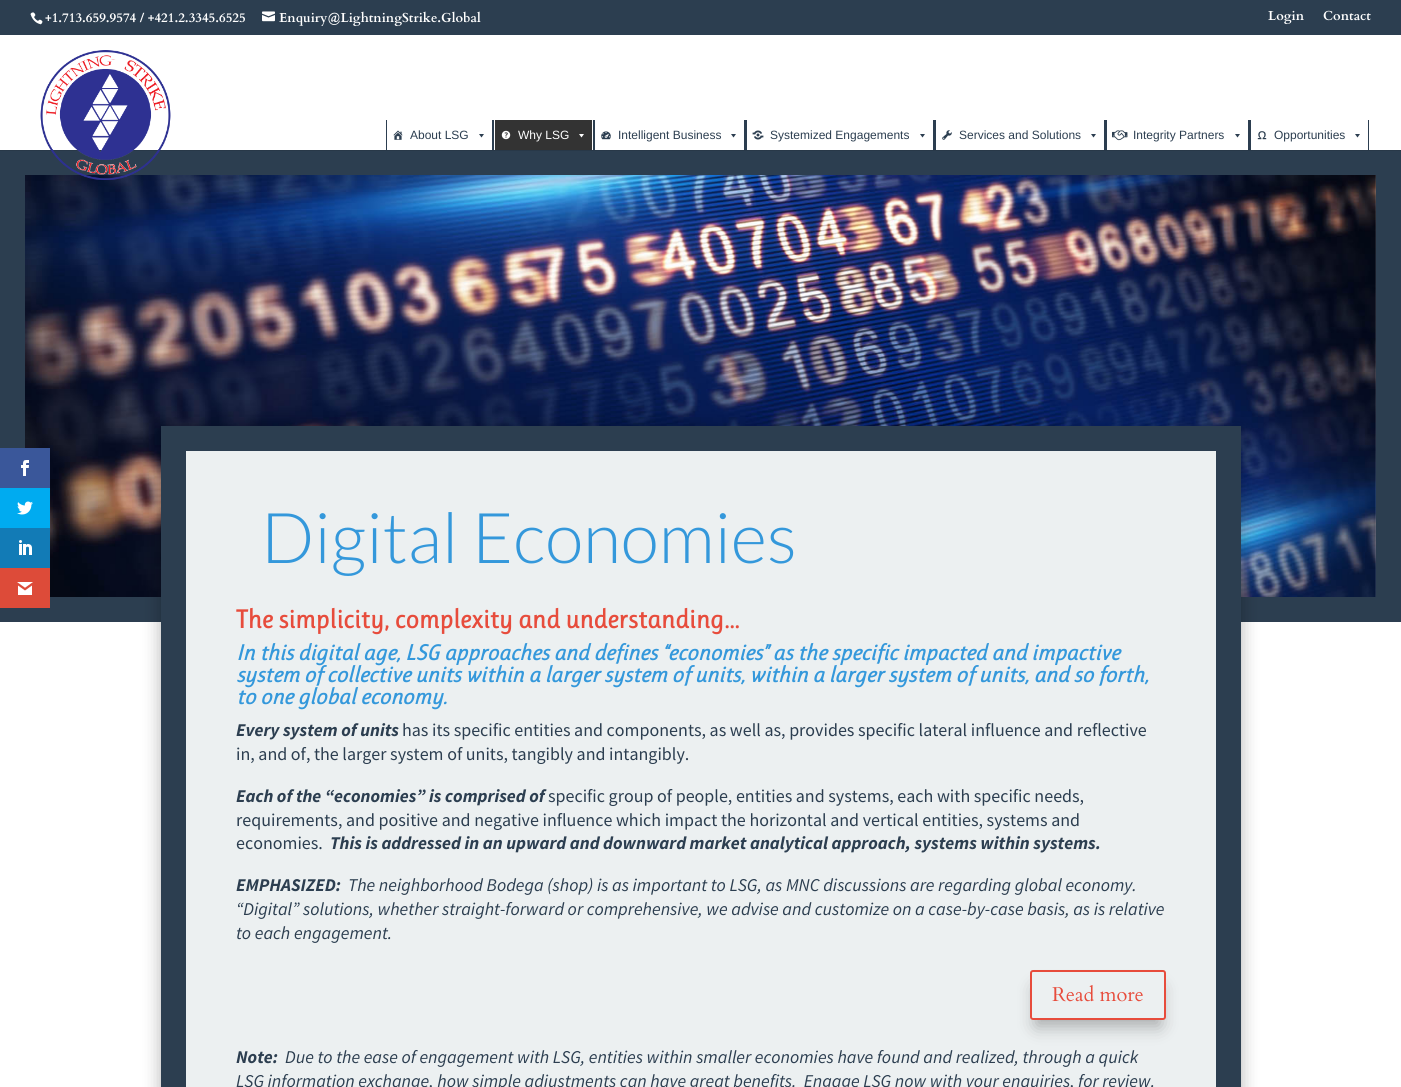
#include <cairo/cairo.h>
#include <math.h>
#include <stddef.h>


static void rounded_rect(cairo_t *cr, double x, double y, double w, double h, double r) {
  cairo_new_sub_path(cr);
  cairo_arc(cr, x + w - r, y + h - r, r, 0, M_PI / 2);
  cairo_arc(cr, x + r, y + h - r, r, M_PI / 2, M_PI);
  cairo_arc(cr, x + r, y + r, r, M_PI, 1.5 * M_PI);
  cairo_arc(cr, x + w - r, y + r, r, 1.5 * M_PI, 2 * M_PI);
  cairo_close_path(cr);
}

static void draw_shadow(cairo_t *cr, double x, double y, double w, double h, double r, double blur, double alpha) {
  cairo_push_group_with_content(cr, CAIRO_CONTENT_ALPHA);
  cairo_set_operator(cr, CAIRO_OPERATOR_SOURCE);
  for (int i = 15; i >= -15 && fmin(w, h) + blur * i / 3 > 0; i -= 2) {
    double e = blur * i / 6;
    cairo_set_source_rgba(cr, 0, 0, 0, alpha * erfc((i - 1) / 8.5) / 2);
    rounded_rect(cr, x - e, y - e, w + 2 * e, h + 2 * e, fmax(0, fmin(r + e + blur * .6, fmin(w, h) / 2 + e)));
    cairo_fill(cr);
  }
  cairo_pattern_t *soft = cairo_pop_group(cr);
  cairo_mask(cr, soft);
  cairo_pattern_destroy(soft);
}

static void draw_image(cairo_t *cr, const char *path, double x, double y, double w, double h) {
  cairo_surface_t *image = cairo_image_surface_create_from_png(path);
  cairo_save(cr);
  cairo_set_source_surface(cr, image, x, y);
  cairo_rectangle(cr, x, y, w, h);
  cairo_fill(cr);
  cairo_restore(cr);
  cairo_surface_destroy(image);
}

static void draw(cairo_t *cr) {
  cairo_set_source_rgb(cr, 1, 1, 1);
  cairo_paint(cr);
  cairo_rectangle(cr, 12.5, 162.5, 1376, 447);
  cairo_set_source_rgb(cr, 44 / 255.0, 62 / 255.0, 80 / 255.0);
  cairo_set_line_width(cr, 25);
  cairo_stroke(cr);
  draw_image(cr, "images/15.png", 25, 175, 1351, 422);
  cairo_set_source_rgb(cr, 58 / 255.0, 87 / 255.0, 154 / 255.0);
  cairo_rectangle(cr, 0, 448, 50, 40);
  cairo_fill(cr);
  draw_image(cr, "images/1.png", 21, 460, 8, 16);
  cairo_set_source_rgb(cr, 0, 171 / 255.0, 240 / 255.0);
  cairo_rectangle(cr, 0, 488, 50, 40);
  cairo_fill(cr);
  draw_image(cr, "images/2.png", 17, 501, 16, 14);
  cairo_set_source_rgb(cr, 18 / 255.0, 123 / 255.0, 182 / 255.0);
  cairo_rectangle(cr, 0, 528, 50, 40);
  cairo_fill(cr);
  draw_image(cr, "images/3.png", 19, 540, 13, 15);
  cairo_set_source_rgb(cr, 221 / 255.0, 75 / 255.0, 57 / 255.0);
  cairo_rectangle(cr, 0, 568, 50, 40);
  cairo_fill(cr);
  draw_image(cr, "images/4.png", 17, 582, 16, 13);
  cairo_set_source_rgb(cr, 44 / 255.0, 62 / 255.0, 80 / 255.0);
  cairo_rectangle(cr, 0, 0, 1401, 35);
  cairo_fill(cr);
  draw_image(cr, "images/5.png", 30, 12, 13, 13);
  draw_image(cr, "images/6.png", 262, 11, 13, 11);
  cairo_set_source_rgb(cr, 40 / 255.0, 56 / 255.0, 72 / 255.0);
  cairo_rectangle(cr, 0, 150, 1401, 1);
  cairo_fill(cr);
  draw_image(cr, "images/7.png", 40, 50, 131, 130);
  cairo_set_source_rgb(cr, 44 / 255.0, 62 / 255.0, 80 / 255.0);
  cairo_rectangle(cr, 386, 120, 1, 30);
  cairo_fill(cr);
  draw_image(cr, "images/8.png", 393, 130, 10, 10);
  cairo_new_path(cr);
  cairo_move_to(cr, 484, 134);
  cairo_line_to(cr, 481.5, 137.5);
  cairo_line_to(cr, 479, 134);
  cairo_close_path(cr);
  cairo_fill(cr);
  cairo_rectangle(cr, 492, 120, 2, 30);
  cairo_fill(cr);
  cairo_set_source_rgb(cr, 51 / 255.0, 51 / 255.0, 51 / 255.0);
  cairo_rectangle(cr, 495, 120, 97, 30);
  cairo_fill(cr);
  draw_image(cr, "images/9.png", 501, 130, 10, 10);
  cairo_set_source_rgb(cr, 1, 1, 1);
  cairo_new_path(cr);
  cairo_move_to(cr, 584, 134);
  cairo_line_to(cr, 581.5, 137.5);
  cairo_line_to(cr, 579, 134);
  cairo_close_path(cr);
  cairo_fill(cr);
  cairo_set_source_rgb(cr, 44 / 255.0, 62 / 255.0, 80 / 255.0);
  cairo_rectangle(cr, 593, 120, 2, 30);
  cairo_fill(cr);
  draw_image(cr, "images/10.png", 601, 131, 10, 9);
  cairo_new_path(cr);
  cairo_move_to(cr, 736, 134);
  cairo_line_to(cr, 733.5, 137.5);
  cairo_line_to(cr, 731, 134);
  cairo_close_path(cr);
  cairo_fill(cr);
  cairo_rectangle(cr, 744, 120, 3, 30);
  cairo_fill(cr);
  draw_image(cr, "images/11.png", 752, 130, 12, 10);
  cairo_new_path(cr);
  cairo_move_to(cr, 925, 134);
  cairo_line_to(cr, 922.5, 137.5);
  cairo_line_to(cr, 920, 134);
  cairo_close_path(cr);
  cairo_fill(cr);
  cairo_rectangle(cr, 933, 120, 3, 30);
  cairo_fill(cr);
  draw_image(cr, "images/12.png", 942, 130, 10, 10);
  cairo_new_path(cr);
  cairo_move_to(cr, 1096, 134);
  cairo_line_to(cr, 1093.5, 137.5);
  cairo_line_to(cr, 1091, 134);
  cairo_close_path(cr);
  cairo_fill(cr);
  cairo_rectangle(cr, 1104, 120, 3, 30);
  cairo_fill(cr);
  draw_image(cr, "images/13.png", 1112, 130, 16, 11);
  cairo_new_path(cr);
  cairo_move_to(cr, 1240, 134);
  cairo_line_to(cr, 1237.5, 137.5);
  cairo_line_to(cr, 1235, 134);
  cairo_close_path(cr);
  cairo_fill(cr);
  cairo_rectangle(cr, 1248, 120, 3, 30);
  cairo_fill(cr);
  cairo_rectangle(cr, 1368, 120, 1, 30);
  cairo_fill(cr);
  draw_image(cr, "images/14.png", 1257, 131, 10, 9);
  cairo_new_path(cr);
  cairo_move_to(cr, 1360, 134);
  cairo_line_to(cr, 1357.5, 137.5);
  cairo_line_to(cr, 1355, 134);
  cairo_close_path(cr);
  cairo_fill(cr);
  cairo_set_source_rgb(cr, 0, 0, 0);
  draw_shadow(cr, 161, 428, 1080, 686, 0, 9, 0.3);
  cairo_set_source_rgb(cr, 44 / 255.0, 62 / 255.0, 80 / 255.0);
  cairo_rectangle(cr, 161, 426, 1080, 661);
  cairo_fill(cr);
  cairo_set_source_rgb(cr, 236 / 255.0, 240 / 255.0, 241 / 255.0);
  cairo_rectangle(cr, 186, 451, 1030, 636);
  cairo_fill(cr);
  cairo_save(cr);
  cairo_set_fill_rule(cr, CAIRO_FILL_RULE_EVEN_ODD);
  cairo_new_path(cr);
  cairo_move_to(cr, 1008, 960);
  cairo_line_to(cr, 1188, 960);
  cairo_line_to(cr, 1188, 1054);
  cairo_line_to(cr, 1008, 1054);
  cairo_close_path(cr);
  cairo_move_to(cr, 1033, 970);
  cairo_line_to(cr, 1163, 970);
  cairo_curve_to(cr, 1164.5, 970, 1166, 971.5, 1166, 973);
  cairo_line_to(cr, 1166, 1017);
  cairo_curve_to(cr, 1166, 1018.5, 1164.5, 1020, 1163, 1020);
  cairo_line_to(cr, 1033, 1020);
  cairo_curve_to(cr, 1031.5, 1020, 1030, 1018.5, 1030, 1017);
  cairo_line_to(cr, 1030, 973);
  cairo_curve_to(cr, 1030, 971.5, 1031.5, 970, 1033, 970);
  cairo_close_path(cr);
  cairo_clip(cr);
  cairo_set_source_rgb(cr, 0, 0, 0);
  draw_shadow(cr, 1036, 988, 124, 38, 0, 9, 0.3);
  cairo_restore(cr);
  rounded_rect(cr, 1031, 971, 134, 48, 2);
  cairo_set_source_rgb(cr, 231 / 255.0, 76 / 255.0, 60 / 255.0);
  cairo_set_line_width(cr, 2);
  cairo_stroke(cr);
  draw_image(cr, "images/16.png", 1052, 985, 91, 17);
  cairo_select_font_face(cr, "Cardo", CAIRO_FONT_SLANT_NORMAL, CAIRO_FONT_WEIGHT_BOLD);
  cairo_set_font_size(cr, 13);
  cairo_set_source_rgb(cr, 1, 1, 1);
  cairo_move_to(cr, 45, 22);
  cairo_show_text(cr, "+1.713.659.9574 / +421.2.3345.6525");
  cairo_move_to(cr, 279, 22);
  cairo_show_text(cr, "Enquiry@LightningStrike.Global");
  cairo_move_to(cr, 1268, 20);
  cairo_show_text(cr, "Login");
  cairo_move_to(cr, 1323, 20);
  cairo_show_text(cr, "Contact");
  cairo_select_font_face(cr, "Liberation Sans", CAIRO_FONT_SLANT_NORMAL, CAIRO_FONT_WEIGHT_NORMAL);
  cairo_set_font_size(cr, 12);
  cairo_set_source_rgb(cr, 44 / 255.0, 62 / 255.0, 80 / 255.0);
  cairo_move_to(cr, 410, 139);
  cairo_show_text(cr, "About LSG");
  cairo_set_source_rgb(cr, 1, 1, 1);
  cairo_move_to(cr, 518, 139);
  cairo_show_text(cr, "Why LSG");
  cairo_set_source_rgb(cr, 44 / 255.0, 62 / 255.0, 80 / 255.0);
  cairo_move_to(cr, 618, 139);
  cairo_show_text(cr, "Intelligent Business");
  cairo_move_to(cr, 770, 139);
  cairo_show_text(cr, "Systemized Engagements");
  cairo_move_to(cr, 959, 139);
  cairo_show_text(cr, "Services and Solutions");
  cairo_move_to(cr, 1133, 139);
  cairo_show_text(cr, "Integrity Partners");
  cairo_move_to(cr, 1274, 139);
  cairo_show_text(cr, "Opportunities");
  cairo_select_font_face(cr, "Lato Light", CAIRO_FONT_SLANT_NORMAL, CAIRO_FONT_WEIGHT_NORMAL);
  cairo_set_font_size(cr, 70);
  cairo_set_source_rgb(cr, 52 / 255.0, 152 / 255.0, 219 / 255.0);
  cairo_move_to(cr, 261, 563);
  cairo_show_text(cr, "Digital Economies");
  cairo_select_font_face(cr, "Ruluko", CAIRO_FONT_SLANT_NORMAL, CAIRO_FONT_WEIGHT_BOLD);
  cairo_set_font_size(cr, 26);
  cairo_set_source_rgb(cr, 231 / 255.0, 76 / 255.0, 60 / 255.0);
  cairo_move_to(cr, 236, 628);
  cairo_show_text(cr, "The simplicity, complexity and understanding…");
  cairo_select_font_face(cr, "Ruluko", CAIRO_FONT_SLANT_ITALIC, CAIRO_FONT_WEIGHT_BOLD);
  cairo_set_font_size(cr, 22);
  cairo_set_source_rgb(cr, 52 / 255.0, 152 / 255.0, 219 / 255.0);
  cairo_move_to(cr, 236, 660);
  cairo_show_text(cr, "In this digital age, LSG approaches and defines “economies” as the specific impacted and impactive");
  cairo_move_to(cr, 236, 682);
  cairo_show_text(cr, "system of collective units within a larger system of units, within a larger system of units, and so forth,");
  cairo_move_to(cr, 236, 704);
  cairo_show_text(cr, "to one global economy.");
  cairo_select_font_face(cr, "Source Sans Pro", CAIRO_FONT_SLANT_ITALIC, CAIRO_FONT_WEIGHT_BOLD);
  cairo_set_font_size(cr, 18);
  cairo_set_source_rgb(cr, 44 / 255.0, 62 / 255.0, 80 / 255.0);
  cairo_move_to(cr, 236, 736);
  cairo_show_text(cr, "Every system of units");
  cairo_select_font_face(cr, "Source Sans Pro", CAIRO_FONT_SLANT_NORMAL, CAIRO_FONT_WEIGHT_NORMAL);
  cairo_move_to(cr, 402, 736);
  cairo_show_text(cr, "has its specific entities and components, as well as, provides specific lateral influence and reflective");
  cairo_move_to(cr, 236, 760);
  cairo_show_text(cr, "in, and of, the larger system of units, tangibly and intangibly.");
  cairo_select_font_face(cr, "Source Sans Pro", CAIRO_FONT_SLANT_ITALIC, CAIRO_FONT_WEIGHT_BOLD);
  cairo_move_to(cr, 236, 802);
  cairo_show_text(cr, "Each of the “economies” is comprised of");
  cairo_select_font_face(cr, "Source Sans Pro", CAIRO_FONT_SLANT_NORMAL, CAIRO_FONT_WEIGHT_NORMAL);
  cairo_move_to(cr, 548, 802);
  cairo_show_text(cr, "specific group of people, entities and systems, each with specific needs,");
  cairo_move_to(cr, 236, 826);
  cairo_show_text(cr, "requirements, and positive and negative influence which impact the horizontal and vertical entities, systems and");
  cairo_move_to(cr, 236, 849);
  cairo_show_text(cr, "economies.");
  cairo_select_font_face(cr, "Source Sans Pro", CAIRO_FONT_SLANT_ITALIC, CAIRO_FONT_WEIGHT_BOLD);
  cairo_move_to(cr, 330, 849);
  cairo_show_text(cr, "This is addressed in an upward and downward market analytical approach, systems within systems.");
  cairo_move_to(cr, 236, 891);
  cairo_show_text(cr, "EMPHASIZED:");
  cairo_select_font_face(cr, "Source Sans Pro", CAIRO_FONT_SLANT_ITALIC, CAIRO_FONT_WEIGHT_NORMAL);
  cairo_move_to(cr, 348, 891);
  cairo_show_text(cr, "The neighborhood Bodega (shop) is as important to LSG, as MNC discussions are regarding global economy.");
  cairo_move_to(cr, 236, 915);
  cairo_show_text(cr, "“Digital” solutions, whether straight-forward or comprehensive, we advise and customize on a case-by-case basis, as is relative");
  cairo_move_to(cr, 236, 939);
  cairo_show_text(cr, "to each engagement.");
  cairo_select_font_face(cr, "Source Sans Pro", CAIRO_FONT_SLANT_ITALIC, CAIRO_FONT_WEIGHT_BOLD);
  cairo_move_to(cr, 236, 1063);
  cairo_show_text(cr, "Note:");
  cairo_select_font_face(cr, "Source Sans Pro", CAIRO_FONT_SLANT_ITALIC, CAIRO_FONT_WEIGHT_NORMAL);
  cairo_move_to(cr, 285, 1063);
  cairo_show_text(cr, "Due to the ease of engagement with LSG, entities within smaller economies have found and realized, through a quick");
  cairo_move_to(cr, 236, 1087);
  cairo_show_text(cr, "LSG information exchange, how simple adjustments can have great benefits.  Engage LSG now with your enquiries, for review.");
}

int main(void) {
  cairo_surface_t *surface = cairo_image_surface_create(CAIRO_FORMAT_RGB24, 1401, 1087);
  cairo_t *cr = cairo_create(surface);
  cairo_font_options_t *options = cairo_font_options_create();
  cairo_font_options_set_hint_metrics(options, CAIRO_HINT_METRICS_OFF);
  cairo_font_options_set_hint_style(options, CAIRO_HINT_STYLE_NONE);
  cairo_set_font_options(cr, options);
  cairo_set_miter_limit(cr, 4);
  draw(cr);
  cairo_surface_write_to_png(surface, "out.png");
  cairo_font_options_destroy(options);
  cairo_destroy(cr);
  cairo_surface_destroy(surface);
  return 0;
}
